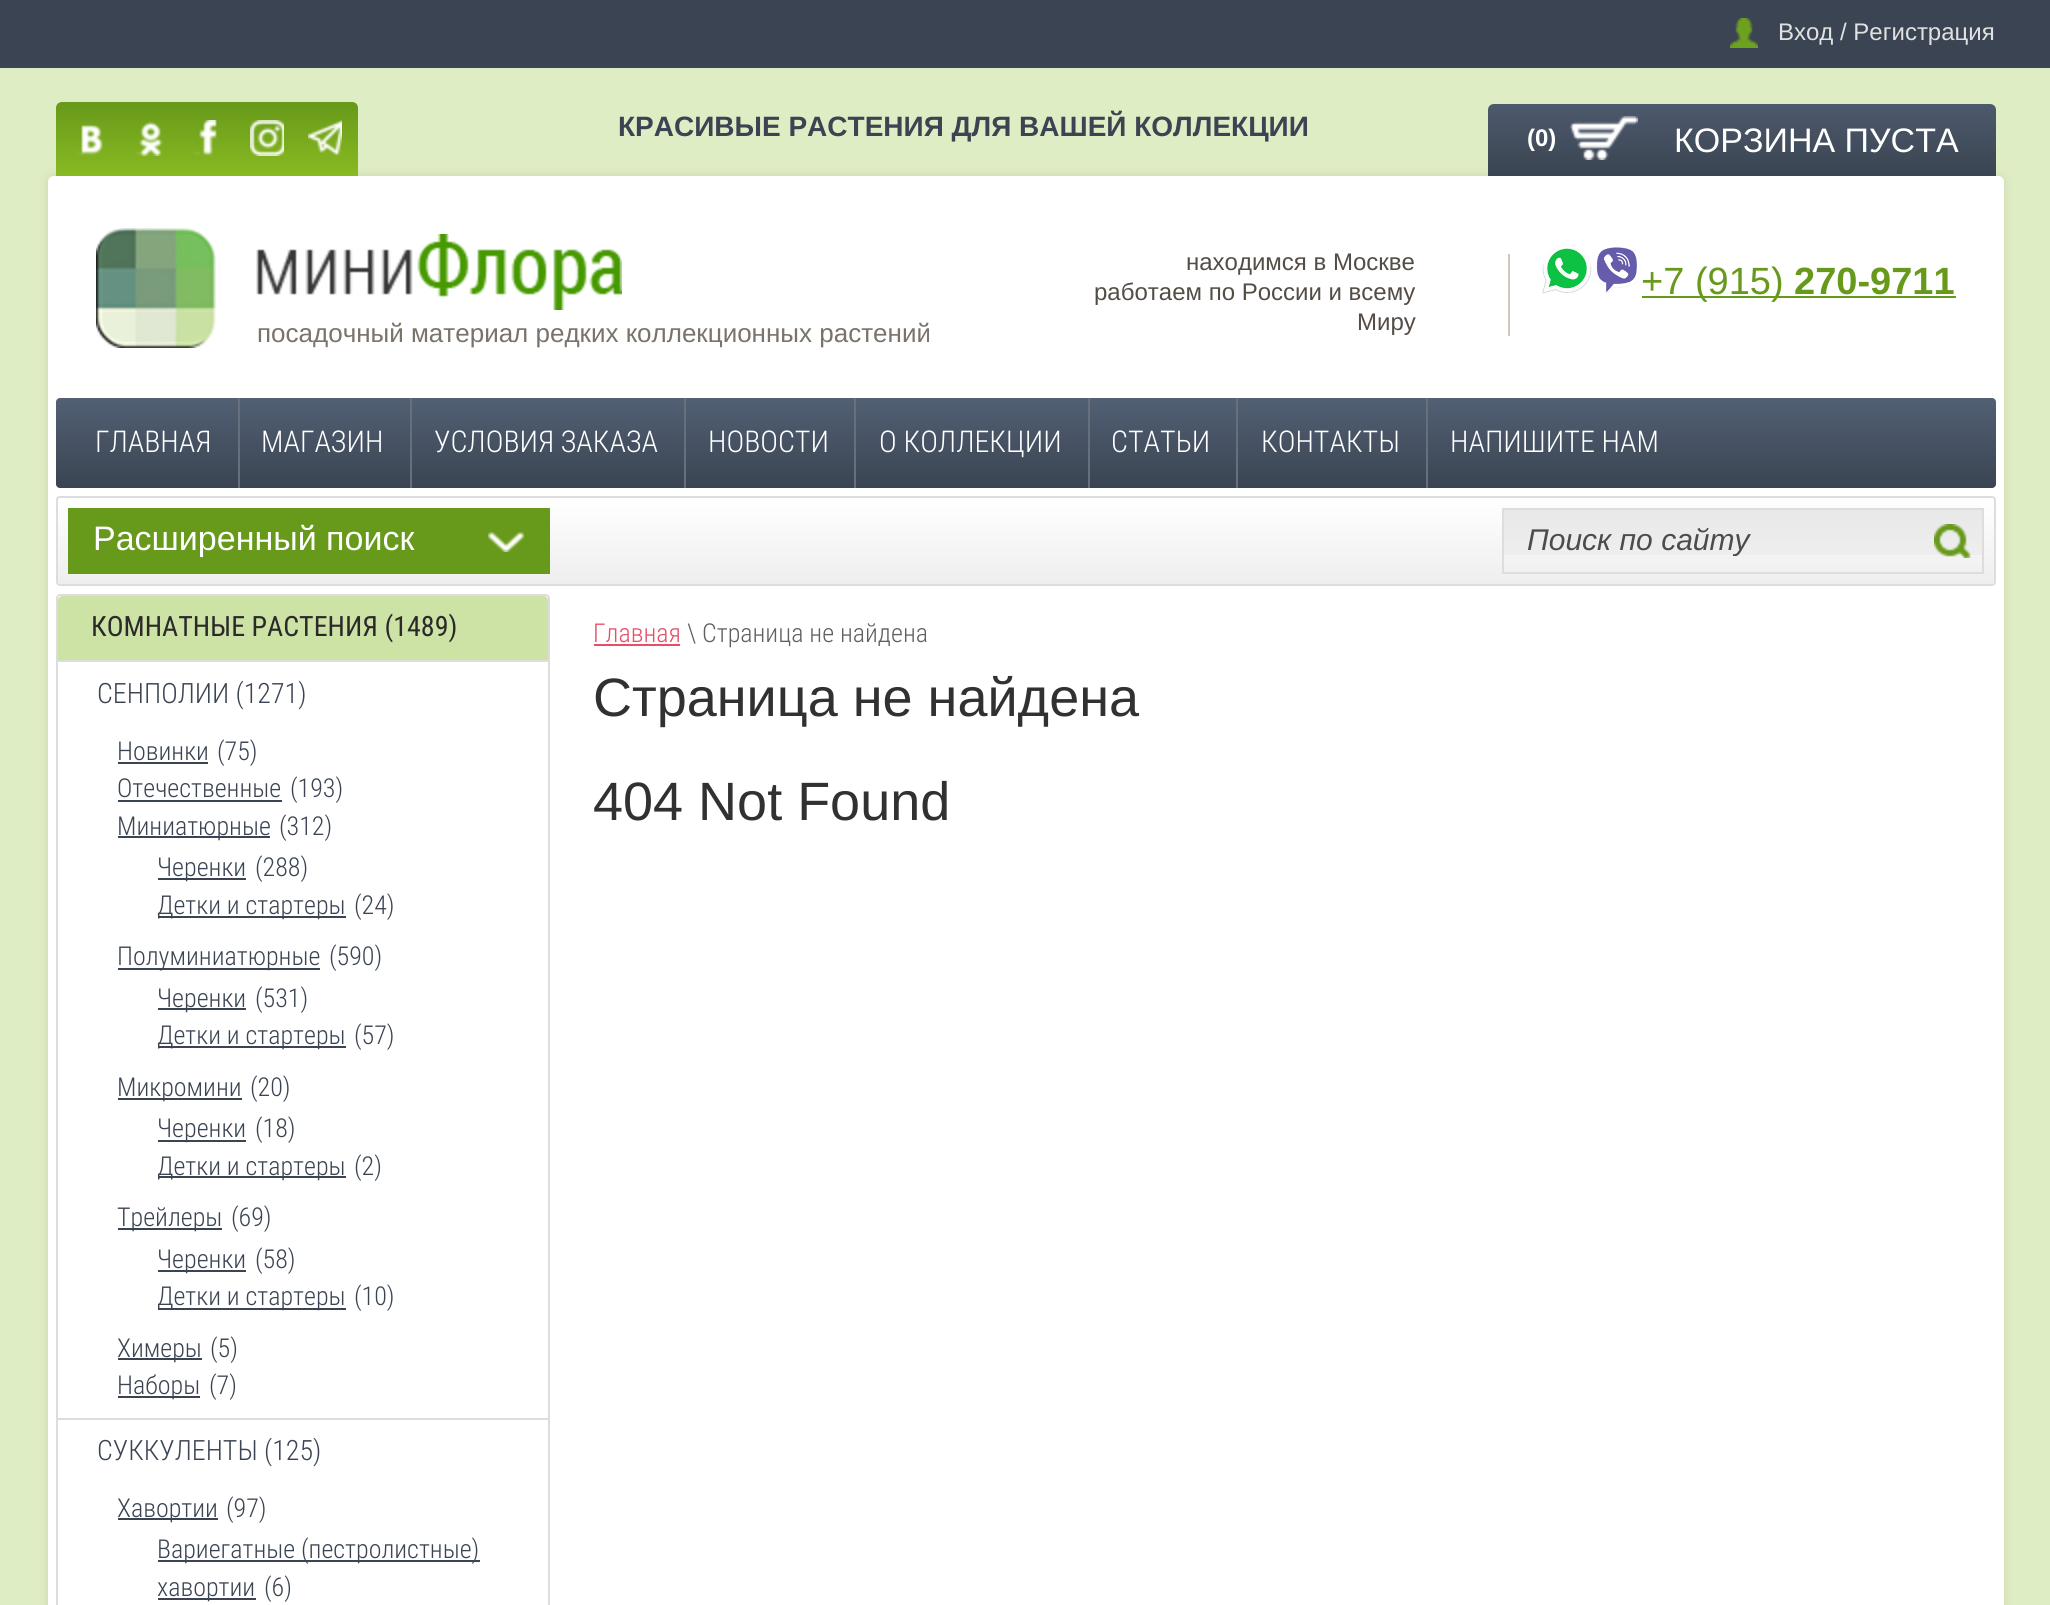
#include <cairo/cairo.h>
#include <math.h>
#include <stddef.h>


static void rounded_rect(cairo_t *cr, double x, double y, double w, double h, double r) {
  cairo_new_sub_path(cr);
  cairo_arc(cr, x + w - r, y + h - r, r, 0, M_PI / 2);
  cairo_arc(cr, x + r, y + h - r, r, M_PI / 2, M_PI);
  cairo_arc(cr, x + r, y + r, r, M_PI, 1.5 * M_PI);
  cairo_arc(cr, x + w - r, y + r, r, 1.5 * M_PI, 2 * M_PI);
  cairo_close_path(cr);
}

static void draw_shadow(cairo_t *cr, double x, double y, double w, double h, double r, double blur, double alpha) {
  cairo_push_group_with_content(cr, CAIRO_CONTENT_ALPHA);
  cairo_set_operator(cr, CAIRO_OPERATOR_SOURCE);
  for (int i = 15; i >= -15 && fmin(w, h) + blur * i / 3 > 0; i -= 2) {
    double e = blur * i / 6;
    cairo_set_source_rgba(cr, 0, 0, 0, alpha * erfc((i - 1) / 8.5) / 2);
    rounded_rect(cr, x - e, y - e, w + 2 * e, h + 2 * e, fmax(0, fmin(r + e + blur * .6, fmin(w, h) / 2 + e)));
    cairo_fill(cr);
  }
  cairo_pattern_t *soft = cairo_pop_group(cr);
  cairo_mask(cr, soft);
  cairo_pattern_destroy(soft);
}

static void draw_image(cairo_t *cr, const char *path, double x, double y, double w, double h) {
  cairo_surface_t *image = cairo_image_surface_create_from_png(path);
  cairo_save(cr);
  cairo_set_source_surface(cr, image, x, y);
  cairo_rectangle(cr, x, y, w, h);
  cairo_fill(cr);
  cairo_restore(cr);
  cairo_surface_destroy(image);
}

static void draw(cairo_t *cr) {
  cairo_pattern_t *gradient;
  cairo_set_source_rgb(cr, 223 / 255.0, 237 / 255.0, 196 / 255.0);
  cairo_paint(cr);
  cairo_set_source_rgb(cr, 58 / 255.0, 68 / 255.0, 82 / 255.0);
  cairo_rectangle(cr, 0, 0, 2050, 68);
  cairo_fill(cr);
  draw_image(cr, "images/1.png", 1730, 18, 28, 30);
  cairo_set_source_rgb(cr, 0, 0, 0);
  draw_shadow(cr, 48, 176, 1956, 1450, 6, 5, 0.1);
  gradient = cairo_pattern_create_linear(207, 102, 207, 176);
  cairo_pattern_add_color_stop_rgba(gradient, 0, 103 / 255.0, 153 / 255.0, 26 / 255.0, 1);
  cairo_pattern_add_color_stop_rgba(gradient, 1, 136 / 255.0, 186 / 255.0, 34 / 255.0, 1);
  cairo_set_source(cr, gradient);
  cairo_pattern_destroy(gradient);
  cairo_new_path(cr);
  cairo_move_to(cr, 62, 102);
  cairo_line_to(cr, 352, 102);
  cairo_curve_to(cr, 355.5, 102, 358, 104.5, 358, 108);
  cairo_line_to(cr, 358, 176);
  cairo_line_to(cr, 56, 176);
  cairo_line_to(cr, 56, 108);
  cairo_curve_to(cr, 56, 104.5, 58.5, 102, 62, 102);
  cairo_close_path(cr);
  cairo_fill(cr);
  draw_image(cr, "images/2.png", 76, 124, 27, 32);
  draw_image(cr, "images/3.png", 134, 121, 29, 35);
  draw_image(cr, "images/4.png", 192, 120, 25, 36);
  draw_image(cr, "images/5.png", 250, 120, 34, 36);
  draw_image(cr, "images/6.png", 308, 120, 34, 36);
  gradient = cairo_pattern_create_linear(1742, 104, 1742, 176);
  cairo_pattern_add_color_stop_rgba(gradient, 0, 77 / 255.0, 90 / 255.0, 108 / 255.0, 1);
  cairo_pattern_add_color_stop_rgba(gradient, 1, 58 / 255.0, 68 / 255.0, 82 / 255.0, 1);
  cairo_set_source(cr, gradient);
  cairo_pattern_destroy(gradient);
  cairo_new_path(cr);
  cairo_move_to(cr, 1494, 104);
  cairo_line_to(cr, 1990, 104);
  cairo_curve_to(cr, 1993.5, 104, 1996, 106.5, 1996, 110);
  cairo_line_to(cr, 1996, 176);
  cairo_line_to(cr, 1488, 176);
  cairo_line_to(cr, 1488, 110);
  cairo_curve_to(cr, 1488, 106.5, 1490.5, 104, 1494, 104);
  cairo_close_path(cr);
  cairo_fill(cr);
  draw_image(cr, "images/7.png", 1570, 116, 68, 44);
  cairo_set_source_rgb(cr, 1, 1, 1);
  rounded_rect(cr, 48, 176, 1956, 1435, 6);
  cairo_fill(cr);
  draw_image(cr, "images/8.png", 96, 228, 120, 120);
  draw_image(cr, "images/9.png", 256, 234, 366, 76);
  cairo_set_source_rgb(cr, 209 / 255.0, 199 / 255.0, 187 / 255.0);
  cairo_rectangle(cr, 1508, 254, 2, 82);
  cairo_fill(cr);
  draw_image(cr, "images/10.png", 1542, 244, 50, 50);
  draw_image(cr, "images/11.png", 1593, 247, 48, 47);
  cairo_set_source_rgb(cr, 103 / 255.0, 153 / 255.0, 26 / 255.0);
  cairo_rectangle(cr, 1642, 296, 314, 2);
  cairo_fill(cr);
  gradient = cairo_pattern_create_linear(1026, 398, 1026, 488);
  cairo_pattern_add_color_stop_rgba(gradient, 0, 82 / 255.0, 96 / 255.0, 116 / 255.0, 1);
  cairo_pattern_add_color_stop_rgba(gradient, 1, 58 / 255.0, 68 / 255.0, 82 / 255.0, 1);
  cairo_set_source(cr, gradient);
  cairo_pattern_destroy(gradient);
  rounded_rect(cr, 56, 398, 1940, 90, 4);
  cairo_fill(cr);
  cairo_set_source_rgb(cr, 103 / 255.0, 111 / 255.0, 124 / 255.0);
  cairo_rectangle(cr, 238, 398, 2, 90);
  cairo_fill(cr);
  cairo_rectangle(cr, 410, 398, 2, 90);
  cairo_fill(cr);
  cairo_rectangle(cr, 684, 398, 2, 90);
  cairo_fill(cr);
  cairo_rectangle(cr, 854, 398, 2, 90);
  cairo_fill(cr);
  cairo_rectangle(cr, 1088, 398, 2, 90);
  cairo_fill(cr);
  cairo_rectangle(cr, 1236, 398, 2, 90);
  cairo_fill(cr);
  cairo_rectangle(cr, 1426, 398, 2, 90);
  cairo_fill(cr);
  gradient = cairo_pattern_create_linear(1026, 498, 1026, 584);
  cairo_pattern_add_color_stop_rgba(gradient, 0, 1, 1, 1, 1);
  cairo_pattern_add_color_stop_rgba(gradient, 1, 238 / 255.0, 238 / 255.0, 238 / 255.0, 1);
  cairo_set_source(cr, gradient);
  cairo_pattern_destroy(gradient);
  rounded_rect(cr, 58, 498, 1936, 86, 2);
  cairo_fill(cr);
  rounded_rect(cr, 57, 497, 1938, 88, 3);
  cairo_set_source_rgb(cr, 221 / 255.0, 221 / 255.0, 221 / 255.0);
  cairo_stroke(cr);
  cairo_set_source_rgb(cr, 103 / 255.0, 153 / 255.0, 26 / 255.0);
  cairo_rectangle(cr, 68, 508, 482, 66);
  cairo_fill(cr);
  draw_image(cr, "images/12.png", 488, 532, 36, 20);
  gradient = cairo_pattern_create_linear(1743, 510, 1743, 572);
  cairo_pattern_add_color_stop_rgba(gradient, 0, 0, 0, 0, 0.08);
  cairo_pattern_add_color_stop_rgba(gradient, 1, 0, 0, 0, 0);
  cairo_set_source(cr, gradient);
  cairo_pattern_destroy(gradient);
  cairo_rectangle(cr, 1504, 510, 478, 45);
  cairo_fill(cr);
  cairo_rectangle(cr, 1503, 509, 480, 64);
  cairo_set_source_rgb(cr, 221 / 255.0, 221 / 255.0, 221 / 255.0);
  cairo_stroke(cr);
  draw_image(cr, "images/13.png", 1934, 524, 37, 34);
  rounded_rect(cr, 57, 595, 492, 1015, 3);
  cairo_stroke(cr);
  cairo_set_source_rgb(cr, 205 / 255.0, 226 / 255.0, 165 / 255.0);
  cairo_new_path(cr);
  cairo_move_to(cr, 62, 596);
  cairo_line_to(cr, 544, 596);
  cairo_curve_to(cr, 546, 596, 548, 598, 548, 600);
  cairo_line_to(cr, 548, 660);
  cairo_line_to(cr, 58, 660);
  cairo_line_to(cr, 58, 600);
  cairo_curve_to(cr, 58, 598, 60, 596, 62, 596);
  cairo_close_path(cr);
  cairo_fill(cr);
  cairo_set_source_rgb(cr, 221 / 255.0, 221 / 255.0, 221 / 255.0);
  cairo_rectangle(cr, 58, 660, 490, 2);
  cairo_fill(cr);
  cairo_set_source_rgb(cr, 58 / 255.0, 68 / 255.0, 82 / 255.0);
  cairo_rectangle(cr, 118, 762, 90, 2);
  cairo_fill(cr);
  cairo_rectangle(cr, 118, 800, 164, 2);
  cairo_fill(cr);
  cairo_rectangle(cr, 118, 836, 152, 2);
  cairo_fill(cr);
  cairo_rectangle(cr, 158, 878, 88, 2);
  cairo_fill(cr);
  cairo_rectangle(cr, 158, 916, 188, 2);
  cairo_fill(cr);
  cairo_rectangle(cr, 118, 968, 202, 2);
  cairo_fill(cr);
  cairo_rectangle(cr, 158, 1008, 88, 2);
  cairo_fill(cr);
  cairo_rectangle(cr, 158, 1046, 188, 2);
  cairo_fill(cr);
  cairo_rectangle(cr, 118, 1098, 124, 2);
  cairo_fill(cr);
  cairo_rectangle(cr, 158, 1140, 88, 2);
  cairo_fill(cr);
  cairo_rectangle(cr, 158, 1176, 188, 2);
  cairo_fill(cr);
  cairo_rectangle(cr, 118, 1228, 104, 2);
  cairo_fill(cr);
  cairo_rectangle(cr, 158, 1270, 88, 2);
  cairo_fill(cr);
  cairo_rectangle(cr, 158, 1308, 188, 2);
  cairo_fill(cr);
  cairo_rectangle(cr, 118, 1358, 84, 2);
  cairo_fill(cr);
  cairo_rectangle(cr, 118, 1396, 82, 2);
  cairo_fill(cr);
  cairo_set_source_rgb(cr, 221 / 255.0, 221 / 255.0, 221 / 255.0);
  cairo_rectangle(cr, 58, 1418, 490, 2);
  cairo_fill(cr);
  cairo_set_source_rgb(cr, 58 / 255.0, 68 / 255.0, 82 / 255.0);
  cairo_rectangle(cr, 118, 1518, 100, 2);
  cairo_fill(cr);
  cairo_rectangle(cr, 158, 1560, 322, 2);
  cairo_fill(cr);
  cairo_rectangle(cr, 158, 1598, 98, 2);
  cairo_fill(cr);
  cairo_set_source_rgb(cr, 231 / 255.0, 78 / 255.0, 103 / 255.0);
  cairo_rectangle(cr, 594, 644, 86, 2);
  cairo_fill(cr);
  cairo_select_font_face(cr, "Liberation Sans", CAIRO_FONT_SLANT_NORMAL, CAIRO_FONT_WEIGHT_NORMAL);
  cairo_set_font_size(cr, 24);
  cairo_set_source_rgb(cr, 225 / 255.0, 225 / 255.0, 225 / 255.0);
  cairo_move_to(cr, 1778, 40);
  cairo_show_text(cr, "Вход / Регистрация");
  cairo_select_font_face(cr, "Liberation Sans", CAIRO_FONT_SLANT_NORMAL, CAIRO_FONT_WEIGHT_BOLD);
  cairo_set_font_size(cr, 28);
  cairo_set_source_rgb(cr, 58 / 255.0, 68 / 255.0, 82 / 255.0);
  cairo_move_to(cr, 618, 136);
  cairo_show_text(cr, "КРАСИВЫЕ РАСТЕНИЯ ДЛЯ ВАШЕЙ КОЛЛЕКЦИИ");
  cairo_set_font_size(cr, 24);
  cairo_set_source_rgb(cr, 1, 1, 1);
  cairo_move_to(cr, 1527, 146);
  cairo_show_text(cr, "(0)");
  cairo_select_font_face(cr, "Liberation Sans", CAIRO_FONT_SLANT_NORMAL, CAIRO_FONT_WEIGHT_NORMAL);
  cairo_set_font_size(cr, 34);
  cairo_move_to(cr, 1674, 152);
  cairo_show_text(cr, "КОРЗИНА ПУСТА");
  cairo_set_font_size(cr, 26);
  cairo_set_source_rgb(cr, 122 / 255.0, 115 / 255.0, 108 / 255.0);
  cairo_move_to(cr, 257, 342);
  cairo_show_text(cr, "посадочный материал редких коллекционных растений");
  cairo_set_font_size(cr, 24);
  cairo_set_source_rgb(cr, 84 / 255.0, 77 / 255.0, 70 / 255.0);
  cairo_move_to(cr, 1186, 270);
  cairo_show_text(cr, "находимся в Москве");
  cairo_move_to(cr, 1094, 300);
  cairo_show_text(cr, "работаем по России и всему");
  cairo_move_to(cr, 1357, 330);
  cairo_show_text(cr, "Миру");
  cairo_set_font_size(cr, 38);
  cairo_set_source_rgb(cr, 103 / 255.0, 153 / 255.0, 26 / 255.0);
  cairo_move_to(cr, 1641, 294);
  cairo_show_text(cr, "+7 (915)");
  cairo_select_font_face(cr, "Liberation Sans", CAIRO_FONT_SLANT_NORMAL, CAIRO_FONT_WEIGHT_BOLD);
  cairo_move_to(cr, 1794, 294);
  cairo_show_text(cr, "270-9711");
  cairo_select_font_face(cr, "Roboto Condensed Light", CAIRO_FONT_SLANT_NORMAL, CAIRO_FONT_WEIGHT_NORMAL);
  cairo_set_font_size(cr, 30);
  cairo_set_source_rgb(cr, 1, 1, 1);
  cairo_move_to(cr, 95, 452);
  cairo_show_text(cr, "ГЛАВНАЯ");
  cairo_move_to(cr, 261, 452);
  cairo_show_text(cr, "МАГАЗИН");
  cairo_move_to(cr, 434, 452);
  cairo_show_text(cr, "УСЛОВИЯ ЗАКАЗА");
  cairo_move_to(cr, 708, 452);
  cairo_show_text(cr, "НОВОСТИ");
  cairo_move_to(cr, 879, 452);
  cairo_show_text(cr, "О КОЛЛЕКЦИИ");
  cairo_move_to(cr, 1111, 452);
  cairo_show_text(cr, "СТАТЬИ");
  cairo_move_to(cr, 1261, 452);
  cairo_show_text(cr, "КОНТАКТЫ");
  cairo_move_to(cr, 1450, 452);
  cairo_show_text(cr, "НАПИШИТЕ НАМ");
  cairo_select_font_face(cr, "Liberation Sans", CAIRO_FONT_SLANT_NORMAL, CAIRO_FONT_WEIGHT_NORMAL);
  cairo_set_font_size(cr, 34);
  cairo_move_to(cr, 93, 550);
  cairo_show_text(cr, "Расширенный поиск");
  cairo_save(cr);
  cairo_rectangle(cr, 1528, 522, 382, 34);
  cairo_clip(cr);
  cairo_select_font_face(cr, "Liberation Sans", CAIRO_FONT_SLANT_ITALIC, CAIRO_FONT_WEIGHT_NORMAL);
  cairo_set_font_size(cr, 30);
  cairo_set_source_rgb(cr, 76 / 255.0, 76 / 255.0, 76 / 255.0);
  cairo_move_to(cr, 1527, 550);
  cairo_show_text(cr, "Поиск по сайту");
  cairo_restore(cr);
  cairo_select_font_face(cr, "roboto", CAIRO_FONT_SLANT_NORMAL, CAIRO_FONT_WEIGHT_NORMAL);
  cairo_set_font_size(cr, 28);
  cairo_set_source_rgb(cr, 43 / 255.0, 41 / 255.0, 41 / 255.0);
  cairo_move_to(cr, 91, 636);
  cairo_show_text(cr, "КОМНАТНЫЕ РАСТЕНИЯ (1489)");
  cairo_select_font_face(cr, "Roboto Condensed Light", CAIRO_FONT_SLANT_NORMAL, CAIRO_FONT_WEIGHT_NORMAL);
  cairo_set_source_rgb(cr, 58 / 255.0, 68 / 255.0, 82 / 255.0);
  cairo_move_to(cr, 97, 703);
  cairo_show_text(cr, "СЕНПОЛИИ (1271)");
  cairo_set_font_size(cr, 26);
  cairo_move_to(cr, 117, 760);
  cairo_show_text(cr, "Новинки");
  cairo_move_to(cr, 217, 760);
  cairo_show_text(cr, "(75)");
  cairo_move_to(cr, 117, 797);
  cairo_show_text(cr, "Отечественные");
  cairo_move_to(cr, 290, 797);
  cairo_show_text(cr, "(193)");
  cairo_move_to(cr, 117, 835);
  cairo_show_text(cr, "Миниатюрные");
  cairo_move_to(cr, 279, 835);
  cairo_show_text(cr, "(312)");
  cairo_move_to(cr, 157, 876);
  cairo_show_text(cr, "Черенки");
  cairo_move_to(cr, 255, 876);
  cairo_show_text(cr, "(288)");
  cairo_move_to(cr, 157, 914);
  cairo_show_text(cr, "Детки и стартеры");
  cairo_move_to(cr, 354, 914);
  cairo_show_text(cr, "(24)");
  cairo_move_to(cr, 117, 965);
  cairo_show_text(cr, "Полуминиатюрные");
  cairo_move_to(cr, 329, 965);
  cairo_show_text(cr, "(590)");
  cairo_move_to(cr, 157, 1007);
  cairo_show_text(cr, "Черенки");
  cairo_move_to(cr, 255, 1007);
  cairo_show_text(cr, "(531)");
  cairo_move_to(cr, 157, 1044);
  cairo_show_text(cr, "Детки и стартеры");
  cairo_move_to(cr, 354, 1044);
  cairo_show_text(cr, "(57)");
  cairo_move_to(cr, 117, 1096);
  cairo_show_text(cr, "Микромини");
  cairo_move_to(cr, 250, 1096);
  cairo_show_text(cr, "(20)");
  cairo_move_to(cr, 157, 1137);
  cairo_show_text(cr, "Черенки");
  cairo_move_to(cr, 255, 1137);
  cairo_show_text(cr, "(18)");
  cairo_move_to(cr, 157, 1175);
  cairo_show_text(cr, "Детки и стартеры");
  cairo_move_to(cr, 354, 1175);
  cairo_show_text(cr, "(2)");
  cairo_move_to(cr, 117, 1226);
  cairo_show_text(cr, "Трейлеры");
  cairo_move_to(cr, 231, 1226);
  cairo_show_text(cr, "(69)");
  cairo_move_to(cr, 157, 1268);
  cairo_show_text(cr, "Черенки");
  cairo_move_to(cr, 255, 1268);
  cairo_show_text(cr, "(58)");
  cairo_move_to(cr, 157, 1305);
  cairo_show_text(cr, "Детки и стартеры");
  cairo_move_to(cr, 354, 1305);
  cairo_show_text(cr, "(10)");
  cairo_move_to(cr, 117, 1357);
  cairo_show_text(cr, "Химеры");
  cairo_move_to(cr, 210, 1357);
  cairo_show_text(cr, "(5)");
  cairo_move_to(cr, 117, 1394);
  cairo_show_text(cr, "Наборы");
  cairo_move_to(cr, 209, 1394);
  cairo_show_text(cr, "(7)");
  cairo_set_font_size(cr, 28);
  cairo_move_to(cr, 97, 1460);
  cairo_show_text(cr, "СУККУЛЕНТЫ (125)");
  cairo_set_font_size(cr, 26);
  cairo_move_to(cr, 117, 1517);
  cairo_show_text(cr, "Хавортии");
  cairo_move_to(cr, 226, 1517);
  cairo_show_text(cr, "(97)");
  cairo_move_to(cr, 157, 1558);
  cairo_show_text(cr, "Вариегатные (пестролистные)");
  cairo_move_to(cr, 157, 1596);
  cairo_show_text(cr, "хавортии");
  cairo_move_to(cr, 264, 1596);
  cairo_show_text(cr, "(6)");
  cairo_set_source_rgb(cr, 231 / 255.0, 78 / 255.0, 103 / 255.0);
  cairo_move_to(cr, 593, 642);
  cairo_show_text(cr, "Главная");
  cairo_set_source_rgb(cr, 97 / 255.0, 95 / 255.0, 95 / 255.0);
  cairo_move_to(cr, 687, 642);
  cairo_show_text(cr, "\\ Страница не найдена");
  cairo_select_font_face(cr, "Liberation Sans", CAIRO_FONT_SLANT_NORMAL, CAIRO_FONT_WEIGHT_NORMAL);
  cairo_set_font_size(cr, 54);
  cairo_set_source_rgb(cr, 49 / 255.0, 49 / 255.0, 49 / 255.0);
  cairo_move_to(cr, 593, 716);
  cairo_show_text(cr, "Страница не найдена");
  cairo_move_to(cr, 593, 820);
  cairo_show_text(cr, "404 Not Found");
}

int main(void) {
  cairo_surface_t *surface = cairo_image_surface_create(CAIRO_FORMAT_RGB24, 2050, 1605);
  cairo_t *cr = cairo_create(surface);
  cairo_font_options_t *options = cairo_font_options_create();
  cairo_font_options_set_hint_metrics(options, CAIRO_HINT_METRICS_OFF);
  cairo_font_options_set_hint_style(options, CAIRO_HINT_STYLE_NONE);
  cairo_set_font_options(cr, options);
  cairo_set_miter_limit(cr, 4);
  draw(cr);
  cairo_surface_write_to_png(surface, "out.png");
  cairo_font_options_destroy(options);
  cairo_destroy(cr);
  cairo_surface_destroy(surface);
  return 0;
}
